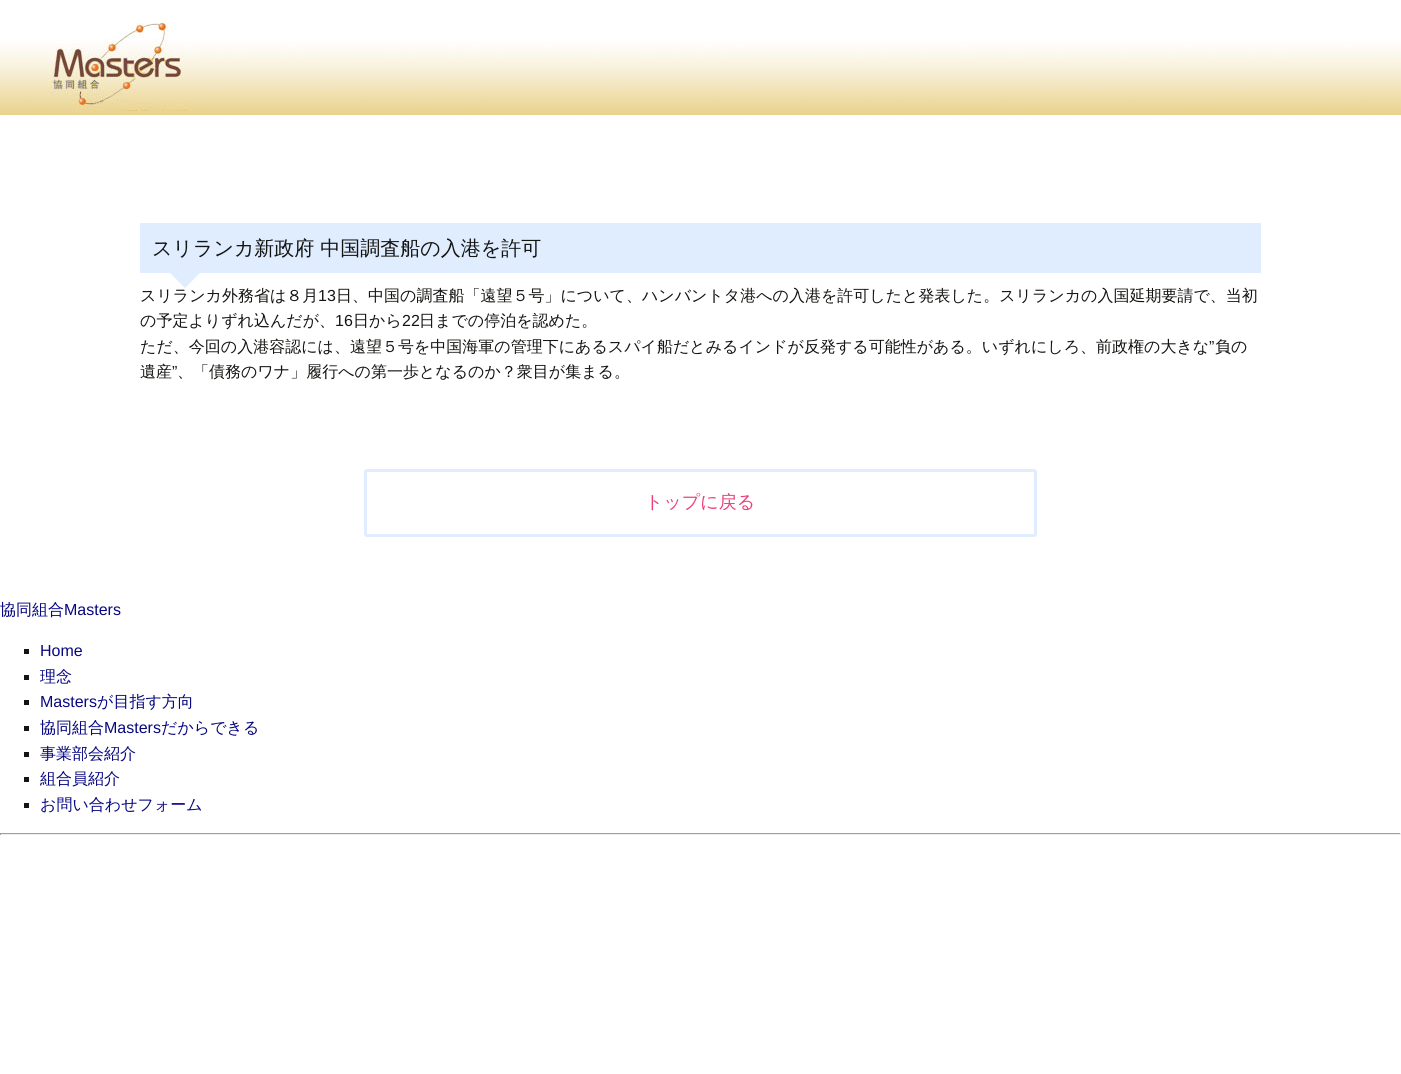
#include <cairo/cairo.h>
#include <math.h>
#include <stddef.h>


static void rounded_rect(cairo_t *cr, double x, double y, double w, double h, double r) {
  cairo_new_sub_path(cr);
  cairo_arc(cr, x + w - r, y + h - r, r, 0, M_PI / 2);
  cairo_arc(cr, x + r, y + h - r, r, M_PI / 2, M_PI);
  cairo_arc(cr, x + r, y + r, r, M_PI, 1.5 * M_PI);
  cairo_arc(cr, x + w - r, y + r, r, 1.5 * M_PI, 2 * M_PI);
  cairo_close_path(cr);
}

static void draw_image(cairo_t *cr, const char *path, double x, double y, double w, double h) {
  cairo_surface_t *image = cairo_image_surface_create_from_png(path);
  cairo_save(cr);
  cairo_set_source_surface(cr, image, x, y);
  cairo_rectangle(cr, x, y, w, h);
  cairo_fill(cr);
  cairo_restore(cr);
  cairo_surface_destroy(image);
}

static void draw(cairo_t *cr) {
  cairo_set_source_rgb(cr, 1, 1, 1);
  cairo_paint(cr);
  draw_image(cr, "images/1.png", 0, 23, 1401, 92);
  cairo_set_source_rgb(cr, 224 / 255.0, 237 / 255.0, 1);
  cairo_rectangle(cr, 140, 223, 1121, 50);
  cairo_fill(cr);
  rounded_rect(cr, 365.5, 470.5, 670, 65, 1.5);
  cairo_set_line_width(cr, 3);
  cairo_stroke(cr);
  cairo_set_source_rgb(cr, 20 / 255.0, 20 / 255.0, 18 / 255.0);
  cairo_rectangle(cr, 24, 649, 5, 5);
  cairo_fill(cr);
  cairo_rectangle(cr, 24, 675, 5, 5);
  cairo_fill(cr);
  cairo_rectangle(cr, 24, 700, 5, 5);
  cairo_fill(cr);
  cairo_rectangle(cr, 24, 726, 5, 5);
  cairo_fill(cr);
  cairo_rectangle(cr, 24, 752, 5, 5);
  cairo_fill(cr);
  cairo_rectangle(cr, 24, 777, 5, 5);
  cairo_fill(cr);
  cairo_rectangle(cr, 24, 803, 5, 5);
  cairo_fill(cr);
  cairo_set_source_rgb(cr, 159 / 255.0, 159 / 255.0, 159 / 255.0);
  cairo_rectangle(cr, 0, 833, 1401, 1);
  cairo_fill(cr);
  cairo_set_source_rgb(cr, 238 / 255.0, 238 / 255.0, 238 / 255.0);
  cairo_rectangle(cr, 1400, 833, 1, 2);
  cairo_fill(cr);
  cairo_rectangle(cr, 0, 834, 1401, 1);
  cairo_fill(cr);
  cairo_set_source_rgb(cr, 159 / 255.0, 159 / 255.0, 159 / 255.0);
  cairo_rectangle(cr, 0, 833, 1, 2);
  cairo_fill(cr);
  cairo_select_font_face(cr, "WenQuanYi Zen Hei Medium", CAIRO_FONT_SLANT_NORMAL, CAIRO_FONT_WEIGHT_NORMAL);
  cairo_set_font_size(cr, 20);
  cairo_set_source_rgb(cr, 20 / 255.0, 20 / 255.0, 18 / 255.0);
  cairo_move_to(cr, 152, 255);
  cairo_show_text(cr, "スリランカ新政府 中国調査船の入港を許可");
  cairo_set_font_size(cr, 16);
  cairo_move_to(cr, 140, 301);
  cairo_show_text(cr, "スリランカ外務省は８月");
  cairo_set_source_rgb(cr, 224 / 255.0, 237 / 255.0, 1);
  cairo_new_path(cr);
  cairo_move_to(cr, 170, 273);
  cairo_line_to(cr, 200, 273);
  cairo_line_to(cr, 185, 288);
  cairo_close_path(cr);
  cairo_fill(cr);
  cairo_select_font_face(cr, "Liberation Sans", CAIRO_FONT_SLANT_NORMAL, CAIRO_FONT_WEIGHT_NORMAL);
  cairo_set_source_rgb(cr, 20 / 255.0, 20 / 255.0, 18 / 255.0);
  cairo_move_to(cr, 318, 301);
  cairo_show_text(cr, "13");
  cairo_select_font_face(cr, "WenQuanYi Zen Hei Medium", CAIRO_FONT_SLANT_NORMAL, CAIRO_FONT_WEIGHT_NORMAL);
  cairo_move_to(cr, 336, 301);
  cairo_show_text(cr, "日、中国の調査船「遠望５号」について、ハンバントタ港への入港を許可したと発表した。スリランカの入国延期要請で、当初");
  cairo_move_to(cr, 140, 326);
  cairo_show_text(cr, "の予定よりずれ込んだが、");
  cairo_select_font_face(cr, "Liberation Sans", CAIRO_FONT_SLANT_NORMAL, CAIRO_FONT_WEIGHT_NORMAL);
  cairo_move_to(cr, 335, 326);
  cairo_show_text(cr, "16");
  cairo_select_font_face(cr, "WenQuanYi Zen Hei Medium", CAIRO_FONT_SLANT_NORMAL, CAIRO_FONT_WEIGHT_NORMAL);
  cairo_move_to(cr, 353, 326);
  cairo_show_text(cr, "日から");
  cairo_select_font_face(cr, "Liberation Sans", CAIRO_FONT_SLANT_NORMAL, CAIRO_FONT_WEIGHT_NORMAL);
  cairo_move_to(cr, 402, 326);
  cairo_show_text(cr, "22");
  cairo_select_font_face(cr, "WenQuanYi Zen Hei Medium", CAIRO_FONT_SLANT_NORMAL, CAIRO_FONT_WEIGHT_NORMAL);
  cairo_move_to(cr, 419, 326);
  cairo_show_text(cr, "日までの停泊を認めた。");
  cairo_move_to(cr, 140, 352);
  cairo_show_text(cr, "ただ、今回の入港容認には、遠望５号を中国海軍の管理下にあるスパイ船だとみるインドが反発する可能性がある。いずれにしろ、前政権の大きな");
  cairo_select_font_face(cr, "Liberation Sans", CAIRO_FONT_SLANT_NORMAL, CAIRO_FONT_WEIGHT_NORMAL);
  cairo_move_to(cr, 1209, 352);
  cairo_show_text(cr, "”");
  cairo_select_font_face(cr, "WenQuanYi Zen Hei Medium", CAIRO_FONT_SLANT_NORMAL, CAIRO_FONT_WEIGHT_NORMAL);
  cairo_move_to(cr, 1215, 352);
  cairo_show_text(cr, "負の");
  cairo_move_to(cr, 140, 377);
  cairo_show_text(cr, "遺産");
  cairo_select_font_face(cr, "Liberation Sans", CAIRO_FONT_SLANT_NORMAL, CAIRO_FONT_WEIGHT_NORMAL);
  cairo_move_to(cr, 172, 377);
  cairo_show_text(cr, "”");
  cairo_select_font_face(cr, "WenQuanYi Zen Hei Medium", CAIRO_FONT_SLANT_NORMAL, CAIRO_FONT_WEIGHT_NORMAL);
  cairo_move_to(cr, 177, 377);
  cairo_show_text(cr, "、「債務のワナ」履行への第一歩となるのか？衆目が集まる。");
  cairo_set_font_size(cr, 18);
  cairo_set_source_rgb(cr, 236 / 255.0, 64 / 255.0, 122 / 255.0);
  cairo_move_to(cr, 645, 508);
  cairo_show_text(cr, "トップに戻る");
  cairo_set_font_size(cr, 16);
  cairo_set_source_rgb(cr, 7 / 255.0, 7 / 255.0, 129 / 255.0);
  cairo_move_to(cr, 0, 615);
  cairo_show_text(cr, "協同組合");
  cairo_select_font_face(cr, "Liberation Sans", CAIRO_FONT_SLANT_NORMAL, CAIRO_FONT_WEIGHT_NORMAL);
  cairo_move_to(cr, 64, 615);
  cairo_show_text(cr, "Masters");
  cairo_move_to(cr, 40, 656);
  cairo_show_text(cr, "Home");
  cairo_select_font_face(cr, "WenQuanYi Zen Hei Medium", CAIRO_FONT_SLANT_NORMAL, CAIRO_FONT_WEIGHT_NORMAL);
  cairo_move_to(cr, 40, 682);
  cairo_show_text(cr, "理念");
  cairo_select_font_face(cr, "Liberation Sans", CAIRO_FONT_SLANT_NORMAL, CAIRO_FONT_WEIGHT_NORMAL);
  cairo_move_to(cr, 40, 707);
  cairo_show_text(cr, "Masters");
  cairo_select_font_face(cr, "WenQuanYi Zen Hei Medium", CAIRO_FONT_SLANT_NORMAL, CAIRO_FONT_WEIGHT_NORMAL);
  cairo_move_to(cr, 97, 707);
  cairo_show_text(cr, "が目指す方向");
  cairo_move_to(cr, 40, 733);
  cairo_show_text(cr, "協同組合");
  cairo_select_font_face(cr, "Liberation Sans", CAIRO_FONT_SLANT_NORMAL, CAIRO_FONT_WEIGHT_NORMAL);
  cairo_move_to(cr, 104, 733);
  cairo_show_text(cr, "Masters");
  cairo_select_font_face(cr, "WenQuanYi Zen Hei Medium", CAIRO_FONT_SLANT_NORMAL, CAIRO_FONT_WEIGHT_NORMAL);
  cairo_move_to(cr, 161, 733);
  cairo_show_text(cr, "だからできる");
  cairo_move_to(cr, 40, 759);
  cairo_show_text(cr, "事業部会紹介");
  cairo_move_to(cr, 40, 784);
  cairo_show_text(cr, "組合員紹介");
  cairo_move_to(cr, 40, 810);
  cairo_show_text(cr, "お問い合わせフォーム");
}

int main(void) {
  cairo_surface_t *surface = cairo_image_surface_create(CAIRO_FORMAT_RGB24, 1401, 1074);
  cairo_t *cr = cairo_create(surface);
  cairo_font_options_t *options = cairo_font_options_create();
  cairo_font_options_set_hint_metrics(options, CAIRO_HINT_METRICS_OFF);
  cairo_font_options_set_hint_style(options, CAIRO_HINT_STYLE_NONE);
  cairo_set_font_options(cr, options);
  cairo_set_miter_limit(cr, 4);
  draw(cr);
  cairo_surface_write_to_png(surface, "out.png");
  cairo_font_options_destroy(options);
  cairo_destroy(cr);
  cairo_surface_destroy(surface);
  return 0;
}
